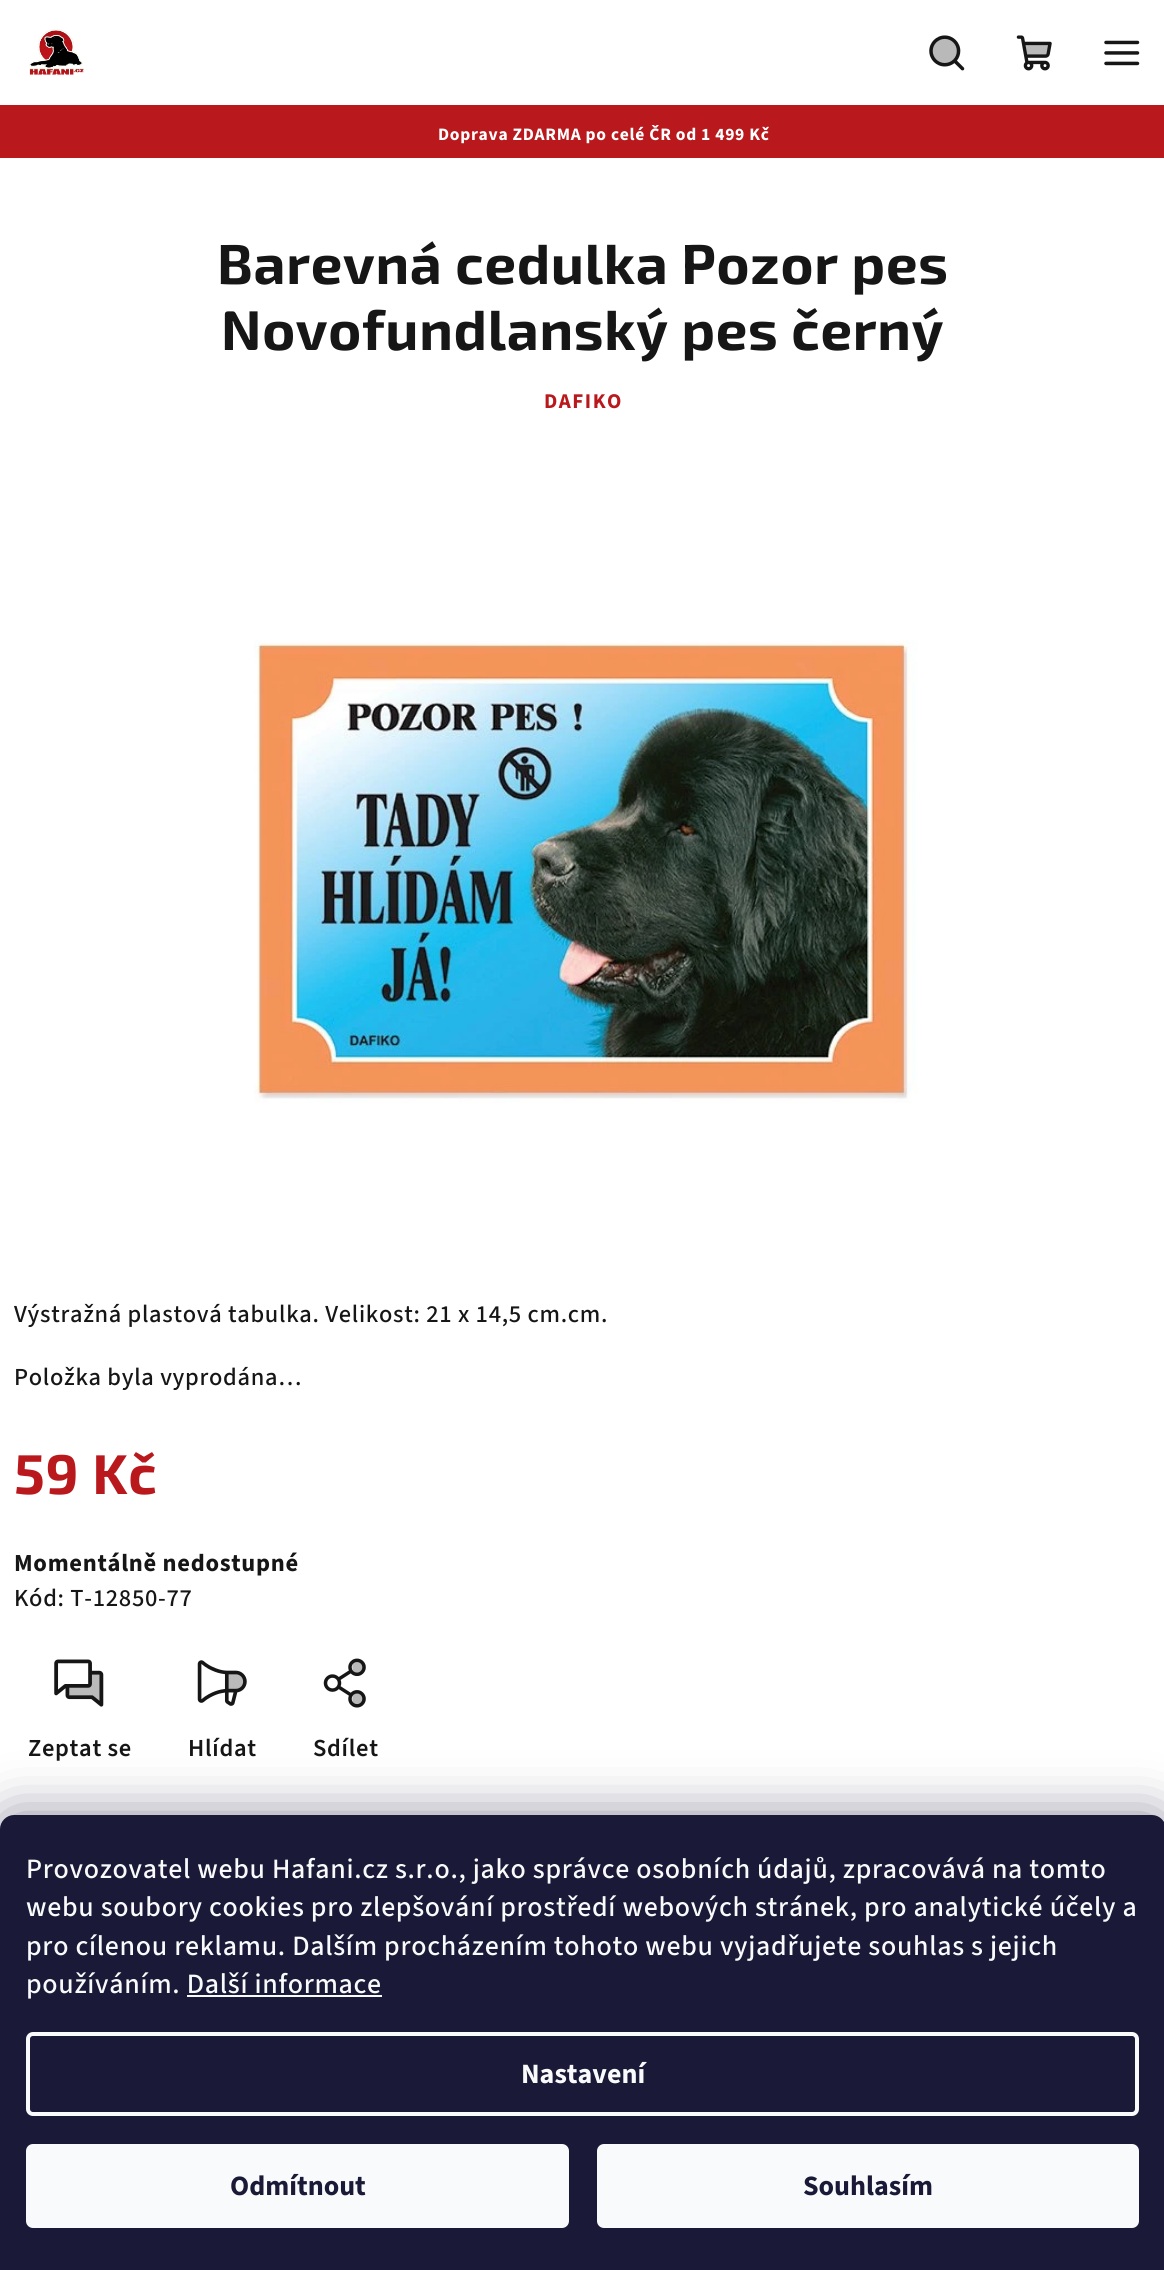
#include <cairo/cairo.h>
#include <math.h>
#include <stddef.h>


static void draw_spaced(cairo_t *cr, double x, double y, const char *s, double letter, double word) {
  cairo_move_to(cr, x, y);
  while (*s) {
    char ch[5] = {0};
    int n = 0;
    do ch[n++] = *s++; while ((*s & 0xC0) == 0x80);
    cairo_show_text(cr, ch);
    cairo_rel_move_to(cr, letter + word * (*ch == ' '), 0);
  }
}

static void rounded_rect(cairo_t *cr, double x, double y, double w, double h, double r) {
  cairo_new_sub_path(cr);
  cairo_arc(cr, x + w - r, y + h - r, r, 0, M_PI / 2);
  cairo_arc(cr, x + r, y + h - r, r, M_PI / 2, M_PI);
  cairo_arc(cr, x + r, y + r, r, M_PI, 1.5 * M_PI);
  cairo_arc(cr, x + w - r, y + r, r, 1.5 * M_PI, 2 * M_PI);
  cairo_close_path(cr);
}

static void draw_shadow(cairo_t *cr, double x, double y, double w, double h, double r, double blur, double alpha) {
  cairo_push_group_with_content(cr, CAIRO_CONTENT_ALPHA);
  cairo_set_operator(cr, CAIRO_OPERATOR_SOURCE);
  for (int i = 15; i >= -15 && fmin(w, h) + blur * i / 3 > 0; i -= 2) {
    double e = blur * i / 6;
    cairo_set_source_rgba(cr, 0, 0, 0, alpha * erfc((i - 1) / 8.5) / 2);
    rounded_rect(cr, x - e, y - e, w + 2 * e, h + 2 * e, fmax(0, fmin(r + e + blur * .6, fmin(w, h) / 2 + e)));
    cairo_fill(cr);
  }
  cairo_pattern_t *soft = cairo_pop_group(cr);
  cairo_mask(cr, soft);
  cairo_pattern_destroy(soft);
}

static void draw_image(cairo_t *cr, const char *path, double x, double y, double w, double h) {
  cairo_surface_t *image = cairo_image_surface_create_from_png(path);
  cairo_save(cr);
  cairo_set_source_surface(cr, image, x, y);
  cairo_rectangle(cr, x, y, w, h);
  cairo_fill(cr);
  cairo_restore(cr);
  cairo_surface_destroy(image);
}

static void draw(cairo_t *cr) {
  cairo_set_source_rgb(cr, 1, 1, 1);
  cairo_paint(cr);
  draw_image(cr, "images/1.png", 29, 29, 55, 47);
  draw_image(cr, "images/2.png", 929, 35, 36, 36);
  cairo_set_source_rgba(cr, 22 / 255.0, 22 / 255.0, 22 / 255.0, 0.3);
  cairo_new_path(cr);
  cairo_move_to(cr, 945, 65);
  cairo_curve_to(cr, 963, 65, 963, 37, 945, 37);
  cairo_curve_to(cr, 942, 37, 939, 38, 936.5, 40);
  cairo_curve_to(cr, 926, 48, 931.5, 65, 945, 65);
  cairo_close_path(cr);
  cairo_fill(cr);
  draw_image(cr, "images/3.png", 1016, 35, 36, 36);
  cairo_new_path(cr);
  cairo_move_to(cr, 1026, 56);
  cairo_line_to(cr, 1042.5, 56);
  cairo_curve_to(cr, 1047, 56, 1047.5, 56.5, 1048.5, 52.5);
  cairo_line_to(cr, 1050, 43.5);
  cairo_line_to(cr, 1023.5, 43.5);
  cairo_close_path(cr);
  cairo_fill(cr);
  draw_image(cr, "images/4.png", 1104, 40, 36, 26);
  cairo_set_source_rgb(cr, 185 / 255.0, 24 / 255.0, 28 / 255.0);
  cairo_rectangle(cr, 0, 105, 1164, 53);
  cairo_fill(cr);
  draw_image(cr, "images/5.png", 254, 640, 664, 463);
  draw_image(cr, "images/6.png", 54, 1659, 50, 48);
  draw_image(cr, "images/7.png", 69, 1674, 35, 31);
  draw_image(cr, "images/8.png", 197, 1660, 50, 46);
  draw_image(cr, "images/9.png", 228, 1674, 16, 15);
  draw_image(cr, "images/10.png", 323, 1658, 43, 50);
  cairo_set_source_rgba(cr, 22 / 255.0, 22 / 255.0, 22 / 255.0, 0.3);
  cairo_new_path(cr);
  cairo_move_to(cr, 359, 1660);
  cairo_curve_to(cr, 350, 1660, 350, 1674, 359, 1674);
  cairo_curve_to(cr, 368, 1674, 368, 1660, 359, 1660);
  cairo_close_path(cr);
  cairo_move_to(cr, 359, 1692);
  cairo_curve_to(cr, 350, 1692, 350, 1706, 359, 1706);
  cairo_curve_to(cr, 368, 1706, 368, 1692, 359, 1692);
  cairo_close_path(cr);
  cairo_fill(cr);
  cairo_set_source_rgb(cr, 27 / 255.0, 25 / 255.0, 57 / 255.0);
  draw_shadow(cr, 0, 1815, 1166, 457, 14, 26, 0.5);
  cairo_set_source_rgb(cr, 26 / 255.0, 25 / 255.0, 55 / 255.0);
  cairo_new_path(cr);
  cairo_move_to(cr, 14, 1815);
  cairo_line_to(cr, 1152, 1815);
  cairo_curve_to(cr, 1159.5, 1815, 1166, 1821.5, 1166, 1829);
  cairo_line_to(cr, 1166, 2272);
  cairo_line_to(cr, 0, 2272);
  cairo_line_to(cr, 0, 1829);
  cairo_curve_to(cr, 0, 1821.5, 6.5, 1815, 14, 1815);
  cairo_close_path(cr);
  cairo_fill(cr);
  cairo_set_source_rgb(cr, 248 / 255.0, 250 / 255.0, 251 / 255.0);
  cairo_rectangle(cr, 187, 1995, 195, 2);
  cairo_fill(cr);
  rounded_rect(cr, 28, 2034, 1109, 80, 5);
  cairo_set_line_width(cr, 4);
  cairo_stroke(cr);
  rounded_rect(cr, 26, 2144, 543, 84, 7);
  cairo_fill(cr);
  rounded_rect(cr, 597, 2144, 542, 84, 7);
  cairo_fill(cr);
  cairo_select_font_face(cr, "Source Sans 3", CAIRO_FONT_SLANT_NORMAL, CAIRO_FONT_WEIGHT_BOLD);
  cairo_set_font_size(cr, 17.5);
  cairo_set_source_rgb(cr, 1, 1, 1);
  draw_spaced(cr, 438, 140, "Doprava ZDARMA po celé ČR od 1 499 Kč", 0.7, 0);
  cairo_select_font_face(cr, "Exo 2", CAIRO_FONT_SLANT_NORMAL, CAIRO_FONT_WEIGHT_BOLD);
  cairo_set_font_size(cr, 56);
  cairo_set_source_rgb(cr, 22 / 255.0, 22 / 255.0, 22 / 255.0);
  draw_spaced(cr, 217, 284, "Barevná cedulka Pozor pes", 0.7, 0);
  draw_spaced(cr, 221, 350, "Novofundlanský pes černý", 0.7, 0);
  cairo_select_font_face(cr, "Source Sans 3", CAIRO_FONT_SLANT_NORMAL, CAIRO_FONT_WEIGHT_BOLD);
  cairo_set_font_size(cr, 21);
  cairo_set_source_rgb(cr, 185 / 255.0, 24 / 255.0, 28 / 255.0);
  draw_spaced(cr, 544, 408, "DAFIKO", 1.5, 0);
  cairo_select_font_face(cr, "Source Sans 3 Medium", CAIRO_FONT_SLANT_NORMAL, CAIRO_FONT_WEIGHT_NORMAL);
  cairo_set_font_size(cr, 24.5);
  cairo_set_source_rgb(cr, 22 / 255.0, 22 / 255.0, 22 / 255.0);
  draw_spaced(cr, 14, 1322, "Výstražná plastová tabulka. Velikost: 21 x 14,5 cm.cm.", 0.7, 0);
  draw_spaced(cr, 14, 1385, "Položka byla vyprodána…", 0.7, 0);
  cairo_select_font_face(cr, "Exo 2", CAIRO_FONT_SLANT_NORMAL, CAIRO_FONT_WEIGHT_BOLD);
  cairo_set_font_size(cr, 56);
  cairo_set_source_rgb(cr, 185 / 255.0, 24 / 255.0, 28 / 255.0);
  draw_spaced(cr, 14, 1494, "59 Kč", 0.7, 0);
  cairo_select_font_face(cr, "Source Sans 3", CAIRO_FONT_SLANT_NORMAL, CAIRO_FONT_WEIGHT_BOLD);
  cairo_set_font_size(cr, 24.5);
  cairo_set_source_rgb(cr, 22 / 255.0, 22 / 255.0, 22 / 255.0);
  draw_spaced(cr, 14, 1571, "Momentálně nedostupné", 0.7, 0);
  cairo_select_font_face(cr, "Source Sans 3 Medium", CAIRO_FONT_SLANT_NORMAL, CAIRO_FONT_WEIGHT_NORMAL);
  draw_spaced(cr, 14, 1606, "Kód: T-12850-77", 0.7, 0);
  cairo_select_font_face(cr, "Source Sans 3 SemiBold", CAIRO_FONT_SLANT_NORMAL, CAIRO_FONT_WEIGHT_NORMAL);
  draw_spaced(cr, 28, 1756, "Zeptat se", 0.7, 0);
  draw_spaced(cr, 188, 1756, "Hlídat", 0.7, 0);
  draw_spaced(cr, 313, 1756, "Sdílet", 0.7, 0);
  cairo_select_font_face(cr, "Source Sans 3 Medium", CAIRO_FONT_SLANT_NORMAL, CAIRO_FONT_WEIGHT_NORMAL);
  cairo_set_font_size(cr, 28);
  cairo_set_source_rgb(cr, 248 / 255.0, 250 / 255.0, 251 / 255.0);
  draw_spaced(cr, 26, 1878, "Provozovatel webu Hafani.cz s.r.o., jako správce osobních údajů, zpracovává na tomto", 0.7, 0);
  draw_spaced(cr, 26, 1916, "webu soubory cookies pro zlepšování prostředí webových stránek, pro analytické účely a", 0.7, 0);
  draw_spaced(cr, 26, 1955, "pro cílenou reklamu. Dalším procházením tohoto webu vyjadřujete souhlas s jejich", 0.7, 0);
  draw_spaced(cr, 26, 1993, "používáním. Další informace", 0.7, 0);
  cairo_select_font_face(cr, "Source Sans 3", CAIRO_FONT_SLANT_NORMAL, CAIRO_FONT_WEIGHT_BOLD);
  cairo_move_to(cr, 521, 2083);
  cairo_show_text(cr, "Nastavení");
  cairo_set_source_rgb(cr, 26 / 255.0, 25 / 255.0, 55 / 255.0);
  cairo_move_to(cr, 230, 2195);
  cairo_show_text(cr, "Odmítnout");
  cairo_move_to(cr, 803, 2195);
  cairo_show_text(cr, "Souhlasím");
}

int main(void) {
  cairo_surface_t *surface = cairo_image_surface_create(CAIRO_FORMAT_RGB24, 1164, 2270);
  cairo_t *cr = cairo_create(surface);
  cairo_font_options_t *options = cairo_font_options_create();
  cairo_font_options_set_hint_metrics(options, CAIRO_HINT_METRICS_OFF);
  cairo_font_options_set_hint_style(options, CAIRO_HINT_STYLE_NONE);
  cairo_set_font_options(cr, options);
  cairo_set_miter_limit(cr, 4);
  draw(cr);
  cairo_surface_write_to_png(surface, "out.png");
  cairo_font_options_destroy(options);
  cairo_destroy(cr);
  cairo_surface_destroy(surface);
  return 0;
}
